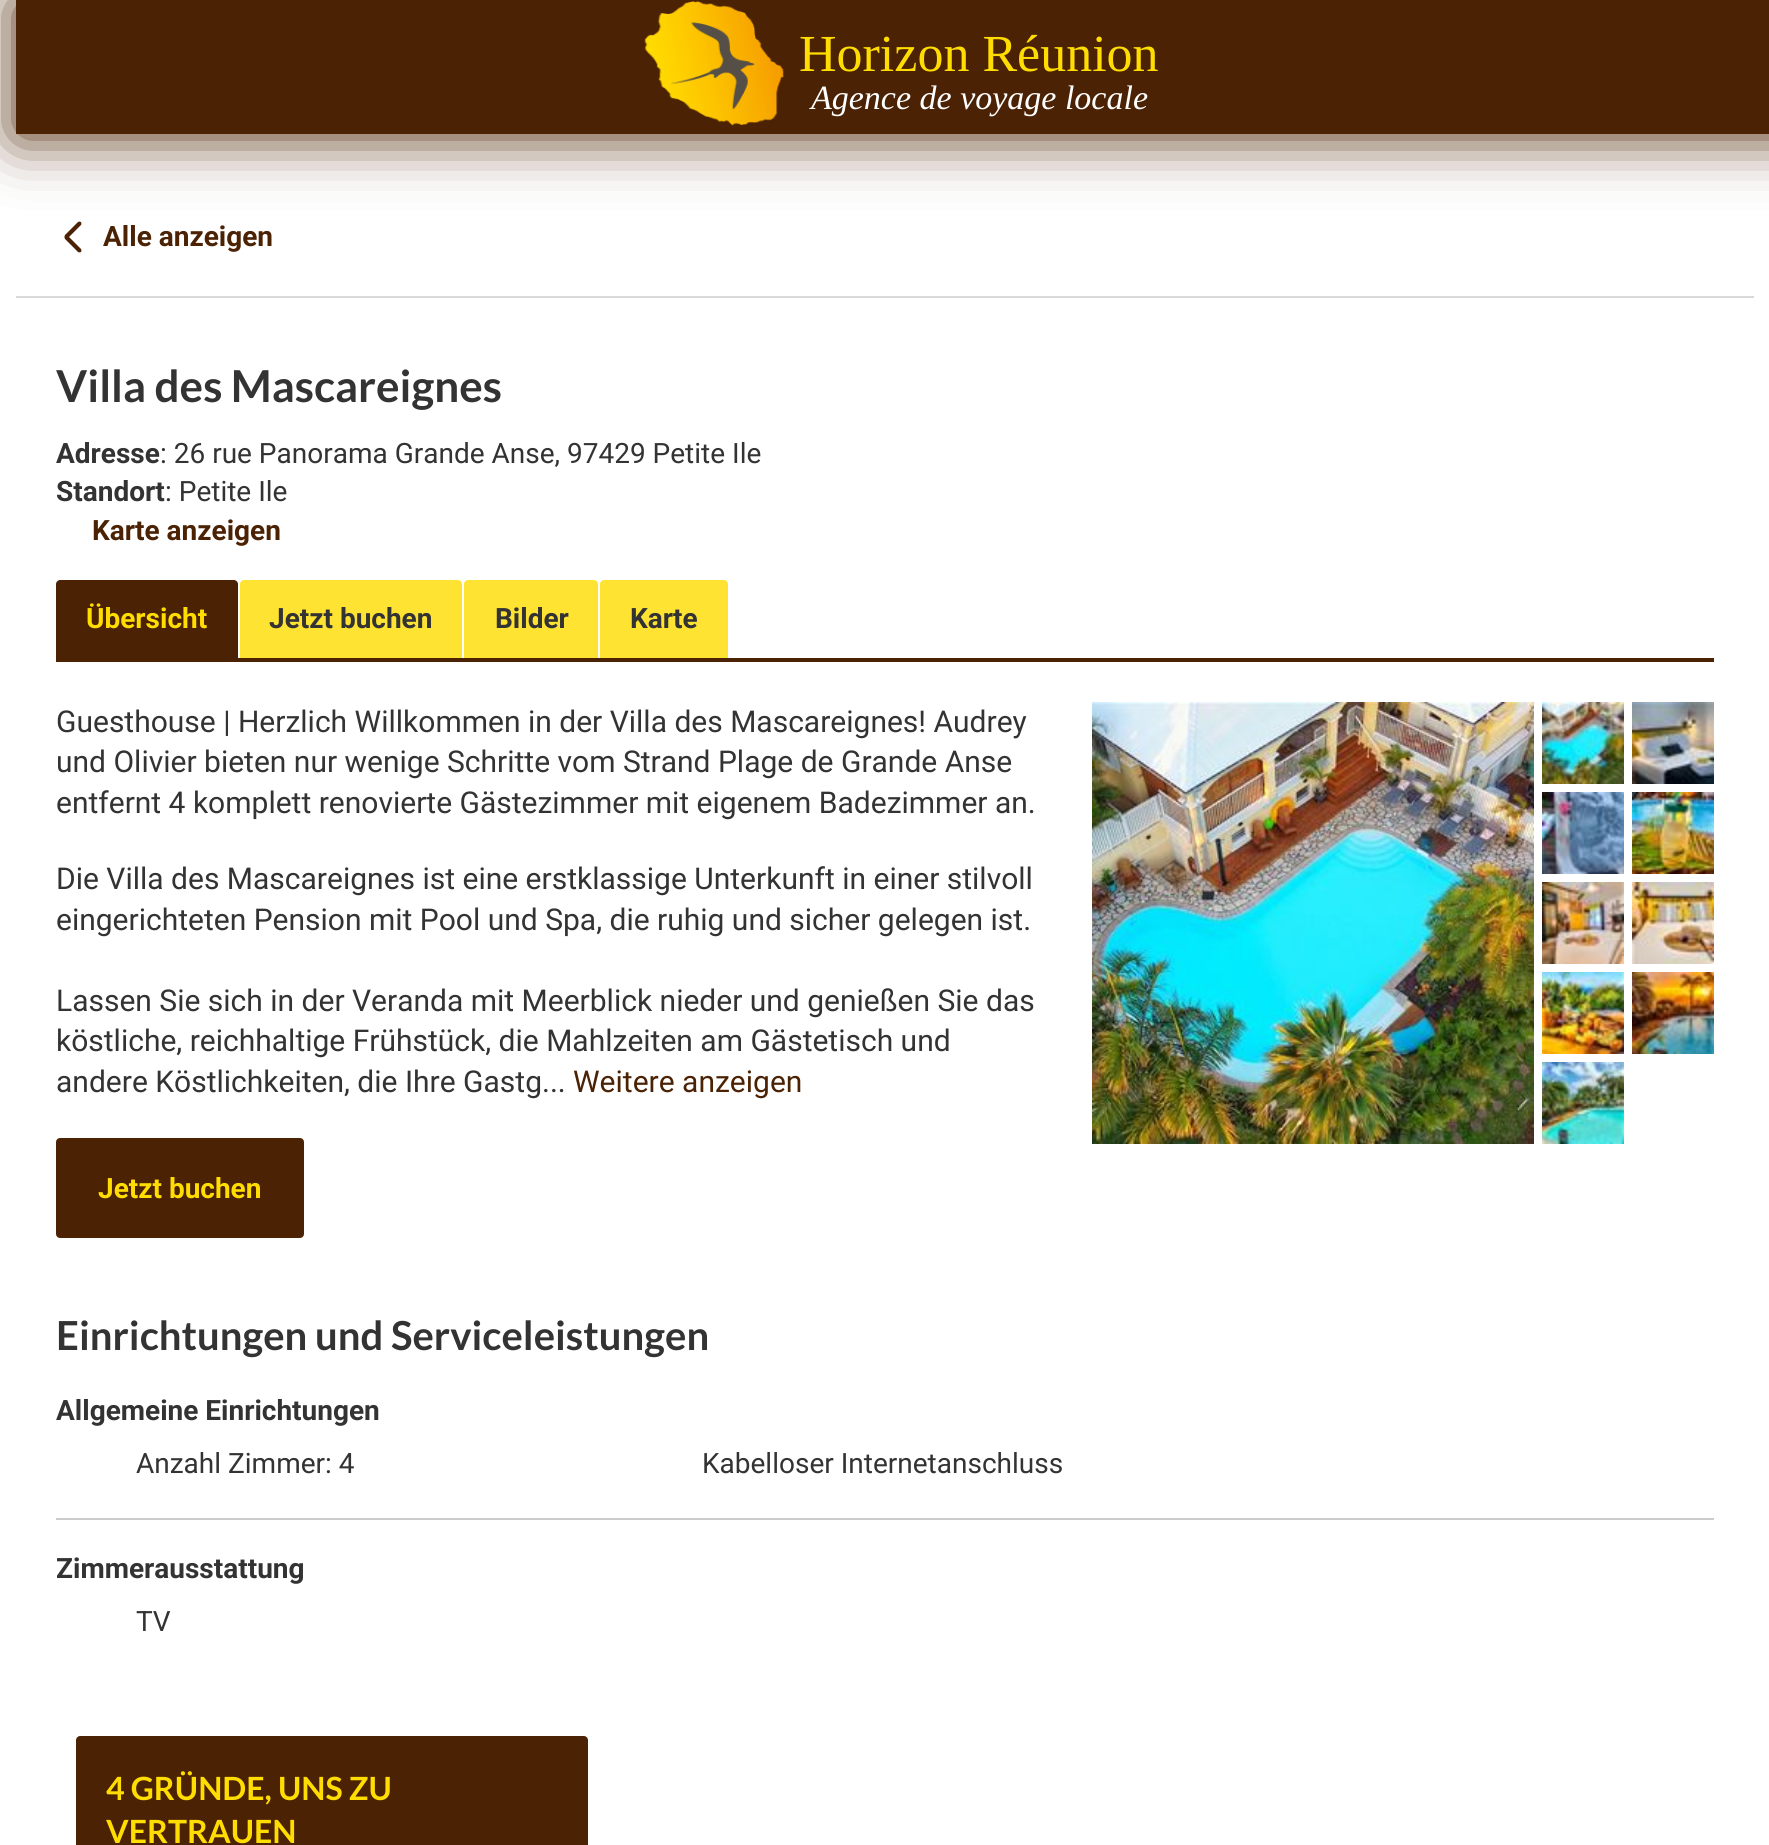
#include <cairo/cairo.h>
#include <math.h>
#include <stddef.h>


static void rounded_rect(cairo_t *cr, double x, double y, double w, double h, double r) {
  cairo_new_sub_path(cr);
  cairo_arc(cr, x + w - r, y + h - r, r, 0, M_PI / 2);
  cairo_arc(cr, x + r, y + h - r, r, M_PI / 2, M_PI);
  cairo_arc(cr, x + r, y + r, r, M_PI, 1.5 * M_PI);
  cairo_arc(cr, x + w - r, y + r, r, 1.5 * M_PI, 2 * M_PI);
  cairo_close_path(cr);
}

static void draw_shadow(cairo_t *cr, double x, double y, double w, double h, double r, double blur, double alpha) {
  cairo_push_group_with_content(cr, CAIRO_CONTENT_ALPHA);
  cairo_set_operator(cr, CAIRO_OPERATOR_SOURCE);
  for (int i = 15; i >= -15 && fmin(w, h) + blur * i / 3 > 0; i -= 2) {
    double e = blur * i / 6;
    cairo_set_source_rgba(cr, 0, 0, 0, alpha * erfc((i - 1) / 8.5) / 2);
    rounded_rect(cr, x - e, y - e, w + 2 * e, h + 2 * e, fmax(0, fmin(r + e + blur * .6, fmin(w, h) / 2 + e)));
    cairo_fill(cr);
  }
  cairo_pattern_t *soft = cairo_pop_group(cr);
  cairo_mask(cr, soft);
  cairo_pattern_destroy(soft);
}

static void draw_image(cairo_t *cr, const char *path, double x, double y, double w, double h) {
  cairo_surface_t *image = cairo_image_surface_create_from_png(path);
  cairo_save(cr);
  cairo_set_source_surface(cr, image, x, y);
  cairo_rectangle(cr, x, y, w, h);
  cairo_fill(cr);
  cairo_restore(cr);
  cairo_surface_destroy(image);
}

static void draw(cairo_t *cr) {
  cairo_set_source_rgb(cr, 1, 1, 1);
  cairo_paint(cr);
  cairo_set_source_rgb(cr, 75 / 255.0, 34 / 255.0, 4 / 255.0);
  cairo_new_path(cr);
  cairo_move_to(cr, 65, 235);
  cairo_line_to(cr, 78, 222);
  cairo_curve_to(cr, 78.5, 221.5, 80, 221.5, 81, 222);
  cairo_curve_to(cr, 81.5, 223, 81.5, 224.5, 81, 225);
  cairo_line_to(cr, 68, 238);
  cairo_curve_to(cr, 67.5, 238.5, 66, 238.5, 65, 238);
  cairo_curve_to(cr, 64.5, 237, 64.5, 235.5, 65, 235);
  cairo_close_path(cr);
  cairo_fill(cr);
  cairo_set_source_rgb(cr, 75 / 255.0, 34 / 255.0, 4 / 255.0);
  draw_shadow(cr, 16, 2, 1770, 134, 0, 30, 1);
  cairo_set_source_rgb(cr, 75 / 255.0, 34 / 255.0, 4 / 255.0);
  cairo_rectangle(cr, 16, 0, 1753, 134);
  cairo_fill(cr);
  draw_image(cr, "images/1.png", 644, 1, 140, 125);
  cairo_set_source_rgb(cr, 217 / 255.0, 217 / 255.0, 217 / 255.0);
  cairo_rectangle(cr, 16, 296, 1738, 2);
  cairo_fill(cr);
  cairo_set_source_rgb(cr, 75 / 255.0, 34 / 255.0, 4 / 255.0);
  cairo_new_path(cr);
  cairo_move_to(cr, 68, 236);
  cairo_line_to(cr, 81, 249);
  cairo_curve_to(cr, 81.5, 249.5, 81.5, 251, 81, 252);
  cairo_curve_to(cr, 80, 252.5, 78.5, 252.5, 78, 252);
  cairo_line_to(cr, 65, 239);
  cairo_curve_to(cr, 64.5, 238.5, 64.5, 237, 65, 236);
  cairo_curve_to(cr, 66, 235.5, 67.5, 235.5, 68, 236);
  cairo_close_path(cr);
  cairo_fill(cr);
  cairo_rectangle(cr, 238, 658, 1476, 4);
  cairo_fill(cr);
  cairo_new_path(cr);
  cairo_move_to(cr, 60, 580);
  cairo_line_to(cr, 234, 580);
  cairo_curve_to(cr, 236, 580, 238, 582, 238, 584);
  cairo_line_to(cr, 238, 662);
  cairo_line_to(cr, 56, 662);
  cairo_line_to(cr, 56, 584);
  cairo_curve_to(cr, 56, 582, 58, 580, 60, 580);
  cairo_close_path(cr);
  cairo_fill(cr);
  cairo_set_source_rgb(cr, 1, 227 / 255.0, 50 / 255.0);
  cairo_new_path(cr);
  cairo_move_to(cr, 244, 580);
  cairo_line_to(cr, 458, 580);
  cairo_curve_to(cr, 460, 580, 462, 582, 462, 584);
  cairo_line_to(cr, 462, 662);
  cairo_line_to(cr, 240, 662);
  cairo_line_to(cr, 240, 584);
  cairo_curve_to(cr, 240, 582, 242, 580, 244, 580);
  cairo_close_path(cr);
  cairo_fill(cr);
  cairo_set_source_rgb(cr, 75 / 255.0, 34 / 255.0, 4 / 255.0);
  cairo_rectangle(cr, 240, 658, 222, 4);
  cairo_fill(cr);
  cairo_set_source_rgb(cr, 1, 227 / 255.0, 50 / 255.0);
  cairo_new_path(cr);
  cairo_move_to(cr, 468, 580);
  cairo_line_to(cr, 594, 580);
  cairo_curve_to(cr, 596, 580, 598, 582, 598, 584);
  cairo_line_to(cr, 598, 662);
  cairo_line_to(cr, 464, 662);
  cairo_line_to(cr, 464, 584);
  cairo_curve_to(cr, 464, 582, 466, 580, 468, 580);
  cairo_close_path(cr);
  cairo_fill(cr);
  cairo_set_source_rgb(cr, 75 / 255.0, 34 / 255.0, 4 / 255.0);
  cairo_rectangle(cr, 464, 658, 134, 4);
  cairo_fill(cr);
  cairo_set_source_rgb(cr, 1, 227 / 255.0, 50 / 255.0);
  cairo_new_path(cr);
  cairo_move_to(cr, 604, 580);
  cairo_line_to(cr, 724, 580);
  cairo_curve_to(cr, 726, 580, 728, 582, 728, 584);
  cairo_line_to(cr, 728, 662);
  cairo_line_to(cr, 600, 662);
  cairo_line_to(cr, 600, 584);
  cairo_curve_to(cr, 600, 582, 602, 580, 604, 580);
  cairo_close_path(cr);
  cairo_fill(cr);
  cairo_set_source_rgb(cr, 75 / 255.0, 34 / 255.0, 4 / 255.0);
  cairo_rectangle(cr, 600, 658, 128, 4);
  cairo_fill(cr);
  rounded_rect(cr, 57, 1139, 246, 98, 3);
  cairo_fill_preserve(cr);
  cairo_stroke(cr);
  draw_image(cr, "images/2.png", 1092, 702, 442, 442);
  draw_image(cr, "images/3.png", 1542, 702, 82, 82);
  draw_image(cr, "images/4.png", 1632, 702, 82, 82);
  draw_image(cr, "images/5.png", 1542, 792, 82, 82);
  draw_image(cr, "images/6.png", 1632, 792, 82, 82);
  draw_image(cr, "images/7.png", 1542, 882, 82, 82);
  draw_image(cr, "images/8.png", 1632, 882, 82, 82);
  draw_image(cr, "images/9.png", 1542, 972, 82, 82);
  draw_image(cr, "images/10.png", 1632, 972, 82, 82);
  draw_image(cr, "images/11.png", 1542, 1062, 82, 82);
  cairo_set_source_rgb(cr, 204 / 255.0, 204 / 255.0, 204 / 255.0);
  cairo_rectangle(cr, 56, 1518, 1658, 2);
  cairo_fill(cr);
  cairo_set_source_rgb(cr, 75 / 255.0, 34 / 255.0, 4 / 255.0);
  cairo_new_path(cr);
  cairo_move_to(cr, 80, 1736);
  cairo_line_to(cr, 584, 1736);
  cairo_curve_to(cr, 586, 1736, 588, 1738, 588, 1740);
  cairo_line_to(cr, 588, 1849);
  cairo_line_to(cr, 76, 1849);
  cairo_line_to(cr, 76, 1740);
  cairo_curve_to(cr, 76, 1738, 78, 1736, 80, 1736);
  cairo_close_path(cr);
  cairo_fill(cr);
  cairo_select_font_face(cr, "Liberation Serif", CAIRO_FONT_SLANT_NORMAL, CAIRO_FONT_WEIGHT_NORMAL);
  cairo_set_font_size(cr, 52);
  cairo_set_source_rgb(cr, 1, 221 / 255.0, 0);
  cairo_move_to(cr, 799, 71);
  cairo_show_text(cr, "Horizon Réunion");
  cairo_select_font_face(cr, "Liberation Serif", CAIRO_FONT_SLANT_ITALIC, CAIRO_FONT_WEIGHT_NORMAL);
  cairo_set_font_size(cr, 34);
  cairo_set_source_rgb(cr, 1, 1, 1);
  cairo_move_to(cr, 811, 109);
  cairo_show_text(cr, "Agence de voyage locale");
  cairo_select_font_face(cr, "Roboto", CAIRO_FONT_SLANT_NORMAL, CAIRO_FONT_WEIGHT_BOLD);
  cairo_set_font_size(cr, 28);
  cairo_set_source_rgb(cr, 75 / 255.0, 34 / 255.0, 4 / 255.0);
  cairo_move_to(cr, 103, 246);
  cairo_show_text(cr, "Alle anzeigen");
  cairo_select_font_face(cr, "Lato", CAIRO_FONT_SLANT_NORMAL, CAIRO_FONT_WEIGHT_BOLD);
  cairo_set_font_size(cr, 44);
  cairo_set_source_rgb(cr, 51 / 255.0, 51 / 255.0, 51 / 255.0);
  cairo_move_to(cr, 56, 402);
  cairo_show_text(cr, "Villa des Mascareignes");
  cairo_select_font_face(cr, "Roboto", CAIRO_FONT_SLANT_NORMAL, CAIRO_FONT_WEIGHT_BOLD);
  cairo_set_font_size(cr, 28);
  cairo_move_to(cr, 56, 463);
  cairo_show_text(cr, "Adresse");
  cairo_select_font_face(cr, "Roboto", CAIRO_FONT_SLANT_NORMAL, CAIRO_FONT_WEIGHT_NORMAL);
  cairo_move_to(cr, 160, 463);
  cairo_show_text(cr, ": 26 rue Panorama Grande Anse, 97429 Petite Ile");
  cairo_select_font_face(cr, "Roboto", CAIRO_FONT_SLANT_NORMAL, CAIRO_FONT_WEIGHT_BOLD);
  cairo_move_to(cr, 56, 501);
  cairo_show_text(cr, "Standort");
  cairo_select_font_face(cr, "Roboto", CAIRO_FONT_SLANT_NORMAL, CAIRO_FONT_WEIGHT_NORMAL);
  cairo_move_to(cr, 165, 501);
  cairo_show_text(cr, ": Petite Ile");
  cairo_select_font_face(cr, "Roboto", CAIRO_FONT_SLANT_NORMAL, CAIRO_FONT_WEIGHT_BOLD);
  cairo_set_source_rgb(cr, 75 / 255.0, 34 / 255.0, 4 / 255.0);
  cairo_move_to(cr, 92, 540);
  cairo_show_text(cr, "Karte anzeigen");
  cairo_set_source_rgb(cr, 1, 221 / 255.0, 0);
  cairo_move_to(cr, 86, 628);
  cairo_show_text(cr, "Übersicht");
  cairo_set_source_rgb(cr, 51 / 255.0, 51 / 255.0, 51 / 255.0);
  cairo_move_to(cr, 269, 628);
  cairo_show_text(cr, "Jetzt buchen");
  cairo_move_to(cr, 495, 628);
  cairo_show_text(cr, "Bilder");
  cairo_move_to(cr, 630, 628);
  cairo_show_text(cr, "Karte");
  cairo_select_font_face(cr, "Roboto", CAIRO_FONT_SLANT_NORMAL, CAIRO_FONT_WEIGHT_NORMAL);
  cairo_set_font_size(cr, 30);
  cairo_move_to(cr, 56, 732);
  cairo_show_text(cr, "Guesthouse | Herzlich Willkommen in der Villa des Mascareignes! Audrey");
  cairo_move_to(cr, 56, 772);
  cairo_show_text(cr, "und Olivier bieten nur wenige Schritte vom Strand Plage de Grande Anse");
  cairo_move_to(cr, 56, 813);
  cairo_show_text(cr, "entfernt 4 komplett renovierte Gästezimmer mit eigenem Badezimmer an.");
  cairo_move_to(cr, 56, 889);
  cairo_show_text(cr, "Die Villa des Mascareignes ist eine erstklassige Unterkunft in einer stilvoll");
  cairo_move_to(cr, 56, 930);
  cairo_show_text(cr, "eingerichteten Pension mit Pool und Spa, die ruhig und sicher gelegen ist.");
  cairo_move_to(cr, 56, 1011);
  cairo_show_text(cr, "Lassen Sie sich in der Veranda mit Meerblick nieder und genießen Sie das");
  cairo_move_to(cr, 56, 1051);
  cairo_show_text(cr, "köstliche, reichhaltige Frühstück, die Mahlzeiten am Gästetisch und");
  cairo_move_to(cr, 56, 1092);
  cairo_show_text(cr, "andere Köstlichkeiten, die Ihre Gastg...");
  cairo_set_source_rgb(cr, 75 / 255.0, 34 / 255.0, 4 / 255.0);
  cairo_move_to(cr, 573, 1092);
  cairo_show_text(cr, "Weitere anzeigen");
  cairo_select_font_face(cr, "Roboto", CAIRO_FONT_SLANT_NORMAL, CAIRO_FONT_WEIGHT_BOLD);
  cairo_set_font_size(cr, 28);
  cairo_set_source_rgb(cr, 1, 221 / 255.0, 0);
  cairo_move_to(cr, 98, 1198);
  cairo_show_text(cr, "Jetzt buchen");
  cairo_select_font_face(cr, "Lato", CAIRO_FONT_SLANT_NORMAL, CAIRO_FONT_WEIGHT_BOLD);
  cairo_set_font_size(cr, 40);
  cairo_set_source_rgb(cr, 51 / 255.0, 51 / 255.0, 51 / 255.0);
  cairo_move_to(cr, 56, 1350);
  cairo_show_text(cr, "Einrichtungen und Serviceleistungen");
  cairo_select_font_face(cr, "Roboto", CAIRO_FONT_SLANT_NORMAL, CAIRO_FONT_WEIGHT_BOLD);
  cairo_set_font_size(cr, 28);
  cairo_move_to(cr, 56, 1420);
  cairo_show_text(cr, "Allgemeine Einrichtungen");
  cairo_select_font_face(cr, "Roboto", CAIRO_FONT_SLANT_NORMAL, CAIRO_FONT_WEIGHT_NORMAL);
  cairo_move_to(cr, 136, 1473);
  cairo_show_text(cr, "Anzahl Zimmer: 4");
  cairo_move_to(cr, 702, 1473);
  cairo_show_text(cr, "Kabelloser Internetanschluss");
  cairo_select_font_face(cr, "Roboto", CAIRO_FONT_SLANT_NORMAL, CAIRO_FONT_WEIGHT_BOLD);
  cairo_move_to(cr, 56, 1578);
  cairo_show_text(cr, "Zimmerausstattung");
  cairo_select_font_face(cr, "Roboto", CAIRO_FONT_SLANT_NORMAL, CAIRO_FONT_WEIGHT_NORMAL);
  cairo_move_to(cr, 136, 1631);
  cairo_show_text(cr, "TV");
  cairo_select_font_face(cr, "Lato", CAIRO_FONT_SLANT_NORMAL, CAIRO_FONT_WEIGHT_BOLD);
  cairo_set_font_size(cr, 32);
  cairo_set_source_rgb(cr, 1, 221 / 255.0, 0);
  cairo_move_to(cr, 106, 1800);
  cairo_show_text(cr, "4 GRÜNDE, UNS ZU");
  cairo_move_to(cr, 106, 1843);
  cairo_show_text(cr, "VERTRAUEN");
}

int main(void) {
  cairo_surface_t *surface = cairo_image_surface_create(CAIRO_FORMAT_RGB24, 1769, 1845);
  cairo_t *cr = cairo_create(surface);
  cairo_font_options_t *options = cairo_font_options_create();
  cairo_font_options_set_hint_metrics(options, CAIRO_HINT_METRICS_OFF);
  cairo_font_options_set_hint_style(options, CAIRO_HINT_STYLE_NONE);
  cairo_set_font_options(cr, options);
  cairo_set_miter_limit(cr, 4);
  draw(cr);
  cairo_surface_write_to_png(surface, "out.png");
  cairo_font_options_destroy(options);
  cairo_destroy(cr);
  cairo_surface_destroy(surface);
  return 0;
}
